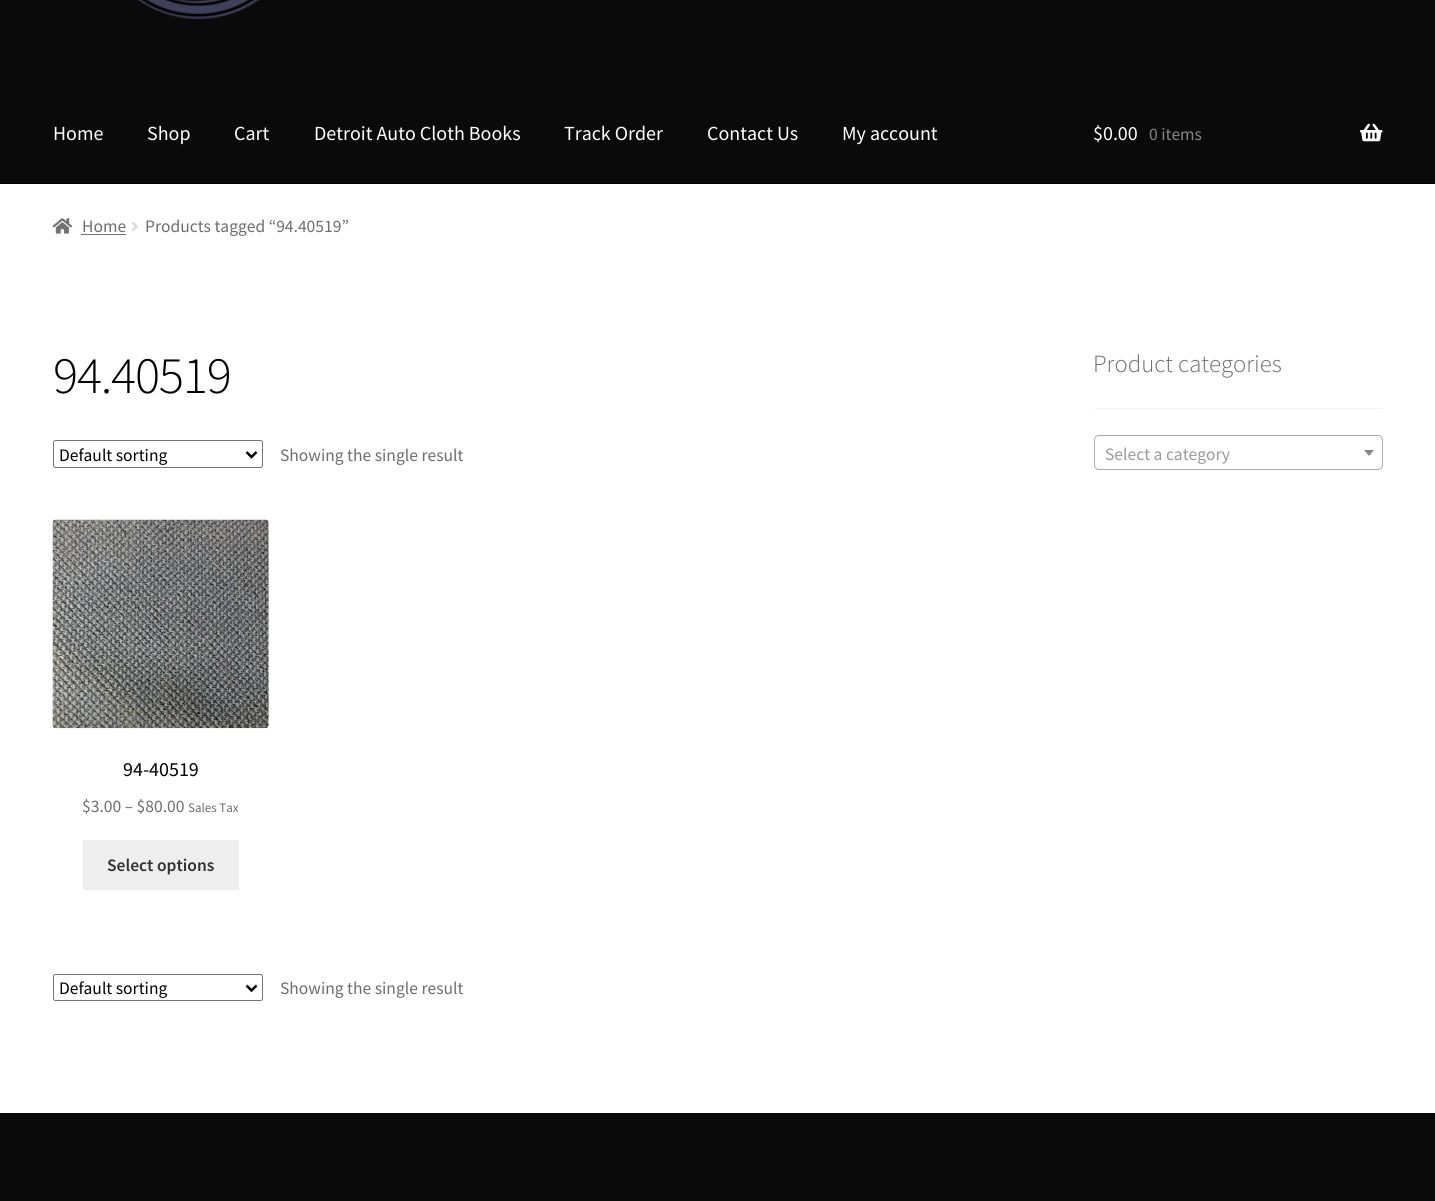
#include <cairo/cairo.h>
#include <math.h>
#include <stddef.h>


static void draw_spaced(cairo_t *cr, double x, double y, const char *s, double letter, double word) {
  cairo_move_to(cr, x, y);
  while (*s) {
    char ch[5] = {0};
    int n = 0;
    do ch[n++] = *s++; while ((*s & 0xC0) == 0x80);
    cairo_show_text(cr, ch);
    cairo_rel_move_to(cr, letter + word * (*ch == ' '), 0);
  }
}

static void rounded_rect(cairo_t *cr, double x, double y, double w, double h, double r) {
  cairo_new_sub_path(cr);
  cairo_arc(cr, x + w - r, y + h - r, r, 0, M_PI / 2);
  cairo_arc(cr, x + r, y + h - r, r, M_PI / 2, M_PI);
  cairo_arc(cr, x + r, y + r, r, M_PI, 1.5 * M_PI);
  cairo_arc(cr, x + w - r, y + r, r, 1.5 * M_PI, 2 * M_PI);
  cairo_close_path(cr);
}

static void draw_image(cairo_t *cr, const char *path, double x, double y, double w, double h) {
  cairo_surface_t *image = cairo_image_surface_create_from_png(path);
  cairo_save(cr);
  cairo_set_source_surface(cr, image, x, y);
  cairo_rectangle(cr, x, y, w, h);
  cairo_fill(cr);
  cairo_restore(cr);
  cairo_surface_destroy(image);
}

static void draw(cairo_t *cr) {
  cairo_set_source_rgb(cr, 1, 1, 1);
  cairo_paint(cr);
  cairo_set_source_rgb(cr, 10 / 255.0, 10 / 255.0, 10 / 255.0);
  cairo_rectangle(cr, 0, 0, 1435, 183);
  cairo_fill(cr);
  cairo_set_source_rgb(cr, 0, 0, 0);
  cairo_rectangle(cr, 0, 183, 1435, 1);
  cairo_fill(cr);
  draw_image(cr, "images/1.png", 137, 0, 123, 20);
  draw_image(cr, "images/2.png", 1360, 123, 23, 19);
  draw_image(cr, "images/3.png", 52, 218, 21, 16);
  cairo_set_source_rgb(cr, 114 / 255.0, 114 / 255.0, 114 / 255.0);
  cairo_rectangle(cr, 81, 234, 45, 1);
  cairo_fill(cr);
  draw_image(cr, "images/4.png", 132, 222, 6, 10);
  rounded_rect(cr, 53.5, 440.5, 209, 27, 2);
  cairo_set_source_rgb(cr, 118 / 255.0, 118 / 255.0, 118 / 255.0);
  cairo_set_line_width(cr, 1);
  cairo_stroke(cr);
  cairo_new_path(cr);
  cairo_move_to(cr, 246.5, 452);
  cairo_line_to(cr, 251.5, 457);
  cairo_line_to(cr, 256.5, 452);
  cairo_set_source_rgb(cr, 0, 0, 0);
  cairo_set_line_width(cr, 2.5);
  cairo_stroke(cr);
  draw_image(cr, "images/5.png", 52, 519, 217, 210);
  cairo_set_source_rgb(cr, 238 / 255.0, 238 / 255.0, 238 / 255.0);
  cairo_rectangle(cr, 83, 840, 156, 50);
  cairo_fill(cr);
  rounded_rect(cr, 53.5, 974.5, 209, 26, 2);
  cairo_set_source_rgb(cr, 118 / 255.0, 118 / 255.0, 118 / 255.0);
  cairo_set_line_width(cr, 1);
  cairo_stroke(cr);
  cairo_new_path(cr);
  cairo_move_to(cr, 246.5, 985.5);
  cairo_line_to(cr, 251.5, 990.5);
  cairo_line_to(cr, 256.5, 985.5);
  cairo_set_source_rgb(cr, 0, 0, 0);
  cairo_set_line_width(cr, 2.5);
  cairo_stroke(cr);
  cairo_set_source_rgb(cr, 242 / 255.0, 242 / 255.0, 242 / 255.0);
  cairo_rectangle(cr, 1094, 408, 289, 1);
  cairo_fill(cr);
  rounded_rect(cr, 1094.5, 435.5, 288, 34, 4.5);
  cairo_set_source_rgb(cr, 170 / 255.0, 170 / 255.0, 170 / 255.0);
  cairo_set_line_width(cr, 1);
  cairo_stroke(cr);
  cairo_set_source_rgb(cr, 136 / 255.0, 136 / 255.0, 136 / 255.0);
  cairo_new_path(cr);
  cairo_move_to(cr, 1364, 450);
  cairo_line_to(cr, 1374, 450);
  cairo_line_to(cr, 1369, 456);
  cairo_close_path(cr);
  cairo_fill(cr);
  cairo_set_source_rgb(cr, 10 / 255.0, 10 / 255.0, 10 / 255.0);
  cairo_rectangle(cr, 0, 1113, 1435, 88);
  cairo_fill(cr);
  cairo_select_font_face(cr, "Source Sans Pro", CAIRO_FONT_SLANT_NORMAL, CAIRO_FONT_WEIGHT_NORMAL);
  cairo_set_font_size(cr, 20);
  cairo_set_source_rgb(cr, 1, 1, 1);
  cairo_move_to(cr, 53, 140);
  cairo_show_text(cr, "Home");
  cairo_move_to(cr, 147, 140);
  cairo_show_text(cr, "Shop");
  cairo_move_to(cr, 234, 140);
  cairo_show_text(cr, "Cart");
  cairo_move_to(cr, 314, 140);
  cairo_show_text(cr, "Detroit Auto Cloth Books");
  cairo_move_to(cr, 564, 140);
  cairo_show_text(cr, "Track Order");
  cairo_move_to(cr, 707, 140);
  cairo_show_text(cr, "Contact Us");
  cairo_move_to(cr, 842, 140);
  cairo_show_text(cr, "My account");
  cairo_move_to(cr, 1093, 140);
  cairo_show_text(cr, "$0.00");
  cairo_set_font_size(cr, 17.5);
  cairo_set_source_rgb(cr, 133 / 255.0, 133 / 255.0, 133 / 255.0);
  cairo_move_to(cr, 1149, 140);
  cairo_show_text(cr, "0 items");
  cairo_set_source_rgb(cr, 109 / 255.0, 109 / 255.0, 109 / 255.0);
  cairo_move_to(cr, 82, 232);
  cairo_show_text(cr, "Home");
  cairo_move_to(cr, 145, 232);
  cairo_show_text(cr, "Products tagged “94.40519”");
  cairo_select_font_face(cr, "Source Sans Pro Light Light", CAIRO_FONT_SLANT_NORMAL, CAIRO_FONT_WEIGHT_NORMAL);
  cairo_set_font_size(cr, 52.5);
  cairo_set_source_rgb(cr, 0, 0, 0);
  draw_spaced(cr, 53, 393, "94.40519", -1.25, 0);
  cairo_select_font_face(cr, "Source Sans Pro", CAIRO_FONT_SLANT_NORMAL, CAIRO_FONT_WEIGHT_NORMAL);
  cairo_set_font_size(cr, 17.5);
  cairo_move_to(cr, 59, 461);
  cairo_show_text(cr, "Default sorting");
  cairo_set_source_rgb(cr, 109 / 255.0, 109 / 255.0, 109 / 255.0);
  cairo_move_to(cr, 280, 461);
  cairo_show_text(cr, "Showing the single result");
  cairo_set_font_size(cr, 20);
  cairo_set_source_rgb(cr, 0, 0, 0);
  cairo_move_to(cr, 123, 776);
  cairo_show_text(cr, "94-40519");
  cairo_set_font_size(cr, 17.5);
  cairo_set_source_rgb(cr, 109 / 255.0, 109 / 255.0, 109 / 255.0);
  cairo_move_to(cr, 82, 812);
  cairo_show_text(cr, "$3.00 – $80.00");
  cairo_set_font_size(cr, 13);
  cairo_move_to(cr, 188, 812);
  cairo_show_text(cr, "Sales Tax");
  cairo_select_font_face(cr, "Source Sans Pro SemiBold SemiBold", CAIRO_FONT_SLANT_NORMAL, CAIRO_FONT_WEIGHT_NORMAL);
  cairo_set_font_size(cr, 17.5);
  cairo_set_source_rgb(cr, 51 / 255.0, 51 / 255.0, 51 / 255.0);
  cairo_move_to(cr, 107, 871);
  cairo_show_text(cr, "Select options");
  cairo_select_font_face(cr, "Source Sans Pro", CAIRO_FONT_SLANT_NORMAL, CAIRO_FONT_WEIGHT_NORMAL);
  cairo_set_source_rgb(cr, 0, 0, 0);
  cairo_move_to(cr, 59, 994);
  cairo_show_text(cr, "Default sorting");
  cairo_set_source_rgb(cr, 109 / 255.0, 109 / 255.0, 109 / 255.0);
  cairo_move_to(cr, 280, 994);
  cairo_show_text(cr, "Showing the single result");
  cairo_select_font_face(cr, "Source Sans Pro Light Light", CAIRO_FONT_SLANT_NORMAL, CAIRO_FONT_WEIGHT_NORMAL);
  cairo_set_font_size(cr, 24.75);
  cairo_move_to(cr, 1093, 372);
  cairo_show_text(cr, "Product categories");
  cairo_select_font_face(cr, "Source Sans Pro", CAIRO_FONT_SLANT_NORMAL, CAIRO_FONT_WEIGHT_NORMAL);
  cairo_set_font_size(cr, 17.5);
  cairo_set_source_rgb(cr, 153 / 255.0, 153 / 255.0, 153 / 255.0);
  cairo_move_to(cr, 1105, 460);
  cairo_show_text(cr, "Select a category");
}

int main(void) {
  cairo_surface_t *surface = cairo_image_surface_create(CAIRO_FORMAT_RGB24, 1435, 1201);
  cairo_t *cr = cairo_create(surface);
  cairo_font_options_t *options = cairo_font_options_create();
  cairo_font_options_set_hint_metrics(options, CAIRO_HINT_METRICS_OFF);
  cairo_font_options_set_hint_style(options, CAIRO_HINT_STYLE_NONE);
  cairo_set_font_options(cr, options);
  cairo_set_miter_limit(cr, 4);
  draw(cr);
  cairo_surface_write_to_png(surface, "out.png");
  cairo_font_options_destroy(options);
  cairo_destroy(cr);
  cairo_surface_destroy(surface);
  return 0;
}
